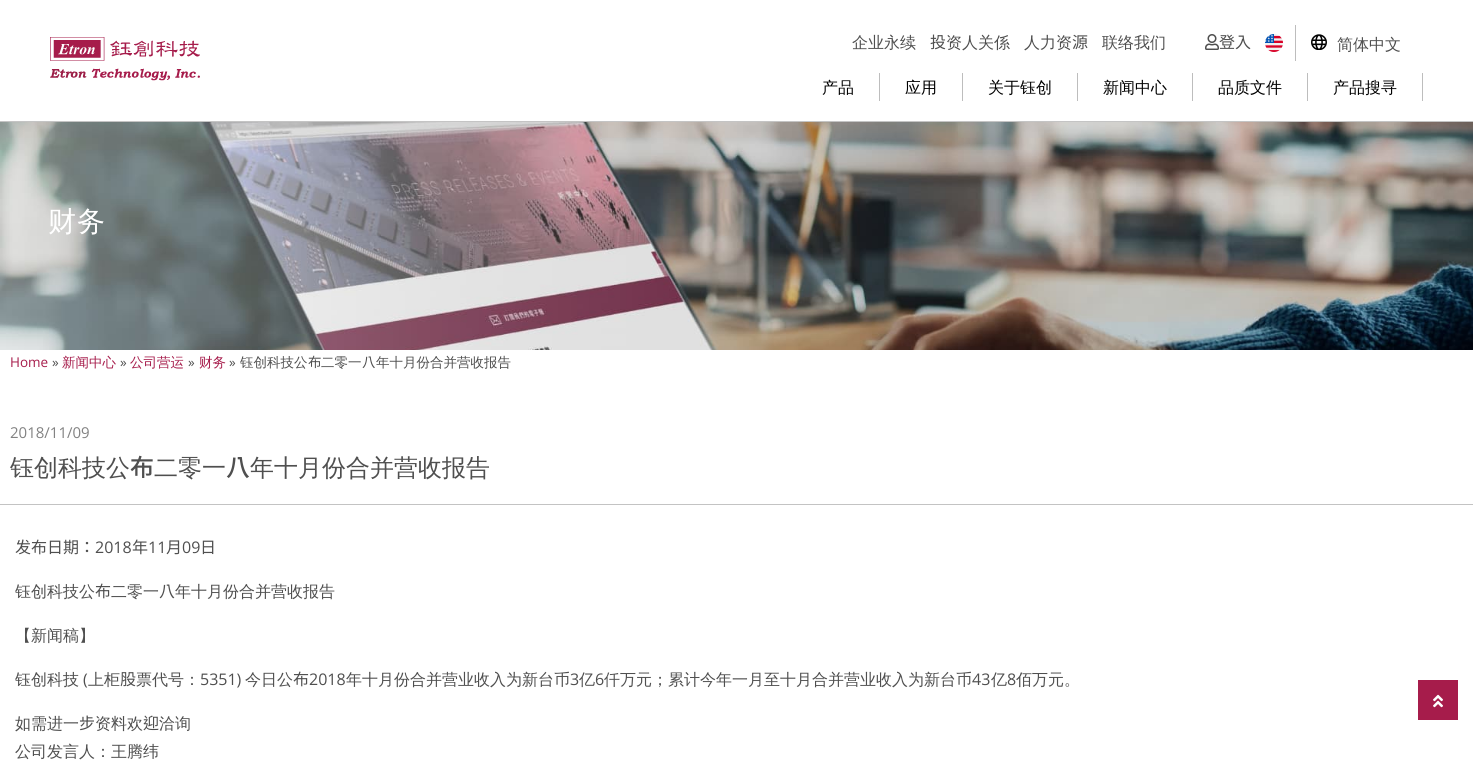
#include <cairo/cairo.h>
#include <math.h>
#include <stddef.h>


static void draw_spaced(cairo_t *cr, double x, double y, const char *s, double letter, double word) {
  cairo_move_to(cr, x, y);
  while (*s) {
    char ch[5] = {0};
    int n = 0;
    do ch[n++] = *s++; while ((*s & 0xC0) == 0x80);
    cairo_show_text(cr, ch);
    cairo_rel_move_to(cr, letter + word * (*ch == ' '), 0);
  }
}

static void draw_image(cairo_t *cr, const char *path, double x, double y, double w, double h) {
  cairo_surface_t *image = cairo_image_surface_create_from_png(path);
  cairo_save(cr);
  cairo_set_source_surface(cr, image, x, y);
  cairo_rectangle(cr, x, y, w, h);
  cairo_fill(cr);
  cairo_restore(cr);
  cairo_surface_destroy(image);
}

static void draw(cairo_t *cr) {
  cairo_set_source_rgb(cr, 1, 1, 1);
  cairo_paint(cr);
  cairo_set_source_rgb(cr, 196 / 255.0, 196 / 255.0, 196 / 255.0);
  cairo_rectangle(cr, 0, 121, 1473, 1);
  cairo_fill(cr);
  draw_image(cr, "images/1.png", 50, 37, 150, 44);
  draw_image(cr, "images/2.png", 1205, 34, 14, 16);
  draw_image(cr, "images/3.png", 1265, 34, 18, 18);
  cairo_set_source_rgb(cr, 189 / 255.0, 189 / 255.0, 189 / 255.0);
  cairo_rectangle(cr, 1295, 25, 1, 36);
  cairo_fill(cr);
  draw_image(cr, "images/4.png", 1311, 34, 16, 16);
  cairo_rectangle(cr, 879, 73, 1, 28);
  cairo_fill(cr);
  cairo_rectangle(cr, 962, 73, 1, 28);
  cairo_fill(cr);
  cairo_rectangle(cr, 1077, 73, 1, 28);
  cairo_fill(cr);
  cairo_rectangle(cr, 1192, 73, 1, 28);
  cairo_fill(cr);
  cairo_rectangle(cr, 1307, 73, 1, 28);
  cairo_fill(cr);
  cairo_rectangle(cr, 1422, 73, 1, 28);
  cairo_fill(cr);
  draw_image(cr, "images/5.png", 0, 122, 1473, 228);
  cairo_set_source_rgb(cr, 195 / 255.0, 195 / 255.0, 195 / 255.0);
  cairo_rectangle(cr, 0, 504, 1473, 1);
  cairo_fill(cr);
  cairo_set_source_rgb(cr, 166 / 255.0, 28 / 255.0, 75 / 255.0);
  cairo_rectangle(cr, 1418, 680, 40, 40);
  cairo_fill(cr);
  draw_image(cr, "images/6.png", 1433, 694, 10, 14);
  cairo_select_font_face(cr, "WenQuanYi Zen Hei Medium", CAIRO_FONT_SLANT_NORMAL, CAIRO_FONT_WEIGHT_NORMAL);
  cairo_set_font_size(cr, 16);
  cairo_set_source_rgb(cr, 79 / 255.0, 79 / 255.0, 79 / 255.0);
  cairo_move_to(cr, 852, 48);
  cairo_show_text(cr, "企业永续");
  cairo_select_font_face(cr, "Noto Sans TC", CAIRO_FONT_SLANT_NORMAL, CAIRO_FONT_WEIGHT_NORMAL);
  cairo_move_to(cr, 930, 48);
  cairo_show_text(cr, "投");
  cairo_select_font_face(cr, "WenQuanYi Zen Hei Medium", CAIRO_FONT_SLANT_NORMAL, CAIRO_FONT_WEIGHT_NORMAL);
  cairo_move_to(cr, 946, 48);
  cairo_show_text(cr, "资人关係");
  cairo_move_to(cr, 1024, 48);
  cairo_show_text(cr, "人力资");
  cairo_select_font_face(cr, "Noto Sans TC", CAIRO_FONT_SLANT_NORMAL, CAIRO_FONT_WEIGHT_NORMAL);
  cairo_move_to(cr, 1072, 48);
  cairo_show_text(cr, "源");
  cairo_select_font_face(cr, "WenQuanYi Zen Hei Medium", CAIRO_FONT_SLANT_NORMAL, CAIRO_FONT_WEIGHT_NORMAL);
  cairo_move_to(cr, 1102, 48);
  cairo_show_text(cr, "联络我们");
  cairo_select_font_face(cr, "Noto Sans TC", CAIRO_FONT_SLANT_NORMAL, CAIRO_FONT_WEIGHT_NORMAL);
  cairo_move_to(cr, 1219, 48);
  cairo_show_text(cr, "登入");
  cairo_select_font_face(cr, "WenQuanYi Zen Hei Medium", CAIRO_FONT_SLANT_NORMAL, CAIRO_FONT_WEIGHT_NORMAL);
  cairo_move_to(cr, 1337, 50);
  cairo_show_text(cr, "简体中文");
  cairo_set_source_rgb(cr, 0, 0, 0);
  cairo_move_to(cr, 822, 93);
  cairo_show_text(cr, "产品");
  cairo_move_to(cr, 905, 93);
  cairo_show_text(cr, "应用");
  cairo_move_to(cr, 988, 93);
  cairo_show_text(cr, "关于钰创");
  cairo_move_to(cr, 1103, 93);
  cairo_show_text(cr, "新闻中心");
  cairo_move_to(cr, 1218, 93);
  cairo_show_text(cr, "品质文件");
  cairo_move_to(cr, 1333, 93);
  cairo_show_text(cr, "产品搜寻");
  cairo_set_font_size(cr, 28);
  cairo_set_source_rgb(cr, 1, 1, 1);
  draw_spaced(cr, 48, 231, "财务", 1, 0);
  cairo_select_font_face(cr, "Open Sans", CAIRO_FONT_SLANT_NORMAL, CAIRO_FONT_WEIGHT_NORMAL);
  cairo_set_font_size(cr, 13.5);
  cairo_set_source_rgb(cr, 166 / 255.0, 28 / 255.0, 75 / 255.0);
  cairo_move_to(cr, 10, 367);
  cairo_show_text(cr, "Home");
  cairo_set_source_rgb(cr, 79 / 255.0, 79 / 255.0, 79 / 255.0);
  cairo_move_to(cr, 52, 367);
  cairo_show_text(cr, "»");
  cairo_select_font_face(cr, "WenQuanYi Zen Hei Medium", CAIRO_FONT_SLANT_NORMAL, CAIRO_FONT_WEIGHT_NORMAL);
  cairo_set_source_rgb(cr, 166 / 255.0, 28 / 255.0, 75 / 255.0);
  cairo_move_to(cr, 62, 367);
  cairo_show_text(cr, "新闻中心");
  cairo_select_font_face(cr, "Open Sans", CAIRO_FONT_SLANT_NORMAL, CAIRO_FONT_WEIGHT_NORMAL);
  cairo_set_source_rgb(cr, 79 / 255.0, 79 / 255.0, 79 / 255.0);
  cairo_move_to(cr, 120, 367);
  cairo_show_text(cr, "»");
  cairo_select_font_face(cr, "WenQuanYi Zen Hei Medium", CAIRO_FONT_SLANT_NORMAL, CAIRO_FONT_WEIGHT_NORMAL);
  cairo_set_source_rgb(cr, 166 / 255.0, 28 / 255.0, 75 / 255.0);
  cairo_move_to(cr, 130, 367);
  cairo_show_text(cr, "公司营运");
  cairo_select_font_face(cr, "Open Sans", CAIRO_FONT_SLANT_NORMAL, CAIRO_FONT_WEIGHT_NORMAL);
  cairo_set_source_rgb(cr, 79 / 255.0, 79 / 255.0, 79 / 255.0);
  cairo_move_to(cr, 188, 367);
  cairo_show_text(cr, "»");
  cairo_select_font_face(cr, "WenQuanYi Zen Hei Medium", CAIRO_FONT_SLANT_NORMAL, CAIRO_FONT_WEIGHT_NORMAL);
  cairo_set_source_rgb(cr, 166 / 255.0, 28 / 255.0, 75 / 255.0);
  cairo_move_to(cr, 199, 367);
  cairo_show_text(cr, "财务");
  cairo_select_font_face(cr, "Open Sans", CAIRO_FONT_SLANT_NORMAL, CAIRO_FONT_WEIGHT_NORMAL);
  cairo_set_source_rgb(cr, 79 / 255.0, 79 / 255.0, 79 / 255.0);
  cairo_move_to(cr, 229, 367);
  cairo_show_text(cr, "»");
  cairo_select_font_face(cr, "WenQuanYi Zen Hei Medium", CAIRO_FONT_SLANT_NORMAL, CAIRO_FONT_WEIGHT_NORMAL);
  cairo_move_to(cr, 240, 367);
  cairo_show_text(cr, "钰创科技公");
  cairo_select_font_face(cr, "Noto Sans TC", CAIRO_FONT_SLANT_NORMAL, CAIRO_FONT_WEIGHT_NORMAL);
  cairo_move_to(cr, 308, 367);
  cairo_show_text(cr, "布");
  cairo_select_font_face(cr, "WenQuanYi Zen Hei Medium", CAIRO_FONT_SLANT_NORMAL, CAIRO_FONT_WEIGHT_NORMAL);
  cairo_move_to(cr, 321, 367);
  cairo_show_text(cr, "二零一");
  cairo_select_font_face(cr, "Noto Sans TC", CAIRO_FONT_SLANT_NORMAL, CAIRO_FONT_WEIGHT_NORMAL);
  cairo_move_to(cr, 362, 367);
  cairo_show_text(cr, "八");
  cairo_select_font_face(cr, "WenQuanYi Zen Hei Medium", CAIRO_FONT_SLANT_NORMAL, CAIRO_FONT_WEIGHT_NORMAL);
  cairo_move_to(cr, 376, 367);
  cairo_show_text(cr, "年十月份合并营收报告");
  cairo_select_font_face(cr, "Open Sans", CAIRO_FONT_SLANT_NORMAL, CAIRO_FONT_WEIGHT_NORMAL);
  cairo_set_font_size(cr, 15);
  cairo_set_source_rgb(cr, 130 / 255.0, 130 / 255.0, 130 / 255.0);
  cairo_move_to(cr, 10, 438);
  cairo_show_text(cr, "2018/11/09");
  cairo_select_font_face(cr, "WenQuanYi Zen Hei Medium", CAIRO_FONT_SLANT_NORMAL, CAIRO_FONT_WEIGHT_NORMAL);
  cairo_set_font_size(cr, 24);
  cairo_set_source_rgb(cr, 79 / 255.0, 79 / 255.0, 79 / 255.0);
  cairo_move_to(cr, 10, 476);
  cairo_show_text(cr, "钰创科技公");
  cairo_select_font_face(cr, "Noto Sans TC Medium", CAIRO_FONT_SLANT_NORMAL, CAIRO_FONT_WEIGHT_NORMAL);
  cairo_move_to(cr, 130, 476);
  cairo_show_text(cr, "布");
  cairo_select_font_face(cr, "WenQuanYi Zen Hei Medium", CAIRO_FONT_SLANT_NORMAL, CAIRO_FONT_WEIGHT_NORMAL);
  cairo_move_to(cr, 154, 476);
  cairo_show_text(cr, "二零一");
  cairo_select_font_face(cr, "Noto Sans TC Medium", CAIRO_FONT_SLANT_NORMAL, CAIRO_FONT_WEIGHT_NORMAL);
  cairo_move_to(cr, 226, 476);
  cairo_show_text(cr, "八");
  cairo_select_font_face(cr, "WenQuanYi Zen Hei Medium", CAIRO_FONT_SLANT_NORMAL, CAIRO_FONT_WEIGHT_NORMAL);
  cairo_move_to(cr, 250, 476);
  cairo_show_text(cr, "年十月份合并营收报告");
  cairo_select_font_face(cr, "Noto Sans TC", CAIRO_FONT_SLANT_NORMAL, CAIRO_FONT_WEIGHT_NORMAL);
  cairo_set_font_size(cr, 16);
  cairo_move_to(cr, 15, 553);
  cairo_show_text(cr, "发布日期：");
  cairo_select_font_face(cr, "Open Sans", CAIRO_FONT_SLANT_NORMAL, CAIRO_FONT_WEIGHT_NORMAL);
  cairo_move_to(cr, 95, 553);
  cairo_show_text(cr, "2018");
  cairo_select_font_face(cr, "Noto Sans TC", CAIRO_FONT_SLANT_NORMAL, CAIRO_FONT_WEIGHT_NORMAL);
  cairo_move_to(cr, 132, 553);
  cairo_show_text(cr, "年");
  cairo_select_font_face(cr, "Open Sans", CAIRO_FONT_SLANT_NORMAL, CAIRO_FONT_WEIGHT_NORMAL);
  cairo_move_to(cr, 148, 553);
  cairo_show_text(cr, "11");
  cairo_select_font_face(cr, "Noto Sans TC", CAIRO_FONT_SLANT_NORMAL, CAIRO_FONT_WEIGHT_NORMAL);
  cairo_move_to(cr, 166, 553);
  cairo_show_text(cr, "月");
  cairo_select_font_face(cr, "Open Sans", CAIRO_FONT_SLANT_NORMAL, CAIRO_FONT_WEIGHT_NORMAL);
  cairo_move_to(cr, 182, 553);
  cairo_show_text(cr, "09");
  cairo_select_font_face(cr, "Noto Sans TC", CAIRO_FONT_SLANT_NORMAL, CAIRO_FONT_WEIGHT_NORMAL);
  cairo_move_to(cr, 200, 553);
  cairo_show_text(cr, "日");
  cairo_select_font_face(cr, "WenQuanYi Zen Hei Medium", CAIRO_FONT_SLANT_NORMAL, CAIRO_FONT_WEIGHT_NORMAL);
  cairo_move_to(cr, 15, 597);
  cairo_show_text(cr, "钰创科技公");
  cairo_select_font_face(cr, "Noto Sans TC", CAIRO_FONT_SLANT_NORMAL, CAIRO_FONT_WEIGHT_NORMAL);
  cairo_move_to(cr, 95, 597);
  cairo_show_text(cr, "布");
  cairo_select_font_face(cr, "WenQuanYi Zen Hei Medium", CAIRO_FONT_SLANT_NORMAL, CAIRO_FONT_WEIGHT_NORMAL);
  cairo_move_to(cr, 111, 597);
  cairo_show_text(cr, "二零一");
  cairo_select_font_face(cr, "Noto Sans TC", CAIRO_FONT_SLANT_NORMAL, CAIRO_FONT_WEIGHT_NORMAL);
  cairo_move_to(cr, 159, 597);
  cairo_show_text(cr, "八");
  cairo_select_font_face(cr, "WenQuanYi Zen Hei Medium", CAIRO_FONT_SLANT_NORMAL, CAIRO_FONT_WEIGHT_NORMAL);
  cairo_move_to(cr, 175, 597);
  cairo_show_text(cr, "年十月份合并营收报告");
  cairo_move_to(cr, 15, 641);
  cairo_show_text(cr, "【新闻稿】");
  cairo_move_to(cr, 15, 685);
  cairo_show_text(cr, "钰创科技");
  cairo_select_font_face(cr, "Open Sans", CAIRO_FONT_SLANT_NORMAL, CAIRO_FONT_WEIGHT_NORMAL);
  cairo_move_to(cr, 83, 685);
  cairo_show_text(cr, "(");
  cairo_select_font_face(cr, "WenQuanYi Zen Hei Medium", CAIRO_FONT_SLANT_NORMAL, CAIRO_FONT_WEIGHT_NORMAL);
  cairo_move_to(cr, 88, 685);
  cairo_show_text(cr, "上柜");
  cairo_select_font_face(cr, "Noto Sans TC", CAIRO_FONT_SLANT_NORMAL, CAIRO_FONT_WEIGHT_NORMAL);
  cairo_move_to(cr, 120, 685);
  cairo_show_text(cr, "股");
  cairo_select_font_face(cr, "WenQuanYi Zen Hei Medium", CAIRO_FONT_SLANT_NORMAL, CAIRO_FONT_WEIGHT_NORMAL);
  cairo_move_to(cr, 136, 685);
  cairo_show_text(cr, "票代号：");
  cairo_select_font_face(cr, "Open Sans", CAIRO_FONT_SLANT_NORMAL, CAIRO_FONT_WEIGHT_NORMAL);
  cairo_move_to(cr, 200, 685);
  cairo_show_text(cr, "5351)");
  cairo_select_font_face(cr, "WenQuanYi Zen Hei Medium", CAIRO_FONT_SLANT_NORMAL, CAIRO_FONT_WEIGHT_NORMAL);
  cairo_move_to(cr, 245, 685);
  cairo_show_text(cr, "今日公");
  cairo_select_font_face(cr, "Noto Sans TC", CAIRO_FONT_SLANT_NORMAL, CAIRO_FONT_WEIGHT_NORMAL);
  cairo_move_to(cr, 293, 685);
  cairo_show_text(cr, "布");
  cairo_select_font_face(cr, "Open Sans", CAIRO_FONT_SLANT_NORMAL, CAIRO_FONT_WEIGHT_NORMAL);
  cairo_move_to(cr, 309, 685);
  cairo_show_text(cr, "2018");
  cairo_select_font_face(cr, "WenQuanYi Zen Hei Medium", CAIRO_FONT_SLANT_NORMAL, CAIRO_FONT_WEIGHT_NORMAL);
  cairo_move_to(cr, 346, 685);
  cairo_show_text(cr, "年十月份合并营业收入为新台币");
  cairo_select_font_face(cr, "Open Sans", CAIRO_FONT_SLANT_NORMAL, CAIRO_FONT_WEIGHT_NORMAL);
  cairo_move_to(cr, 570, 685);
  cairo_show_text(cr, "3");
  cairo_select_font_face(cr, "WenQuanYi Zen Hei Medium", CAIRO_FONT_SLANT_NORMAL, CAIRO_FONT_WEIGHT_NORMAL);
  cairo_move_to(cr, 579, 685);
  cairo_show_text(cr, "亿");
  cairo_select_font_face(cr, "Open Sans", CAIRO_FONT_SLANT_NORMAL, CAIRO_FONT_WEIGHT_NORMAL);
  cairo_move_to(cr, 595, 685);
  cairo_show_text(cr, "6");
  cairo_select_font_face(cr, "WenQuanYi Zen Hei Medium", CAIRO_FONT_SLANT_NORMAL, CAIRO_FONT_WEIGHT_NORMAL);
  cairo_move_to(cr, 604, 685);
  cairo_show_text(cr, "仟万元；累计今年一月至十月合并营业收入为新台币");
  cairo_select_font_face(cr, "Open Sans", CAIRO_FONT_SLANT_NORMAL, CAIRO_FONT_WEIGHT_NORMAL);
  cairo_move_to(cr, 972, 685);
  cairo_show_text(cr, "43");
  cairo_select_font_face(cr, "WenQuanYi Zen Hei Medium", CAIRO_FONT_SLANT_NORMAL, CAIRO_FONT_WEIGHT_NORMAL);
  cairo_move_to(cr, 991, 685);
  cairo_show_text(cr, "亿");
  cairo_select_font_face(cr, "Open Sans", CAIRO_FONT_SLANT_NORMAL, CAIRO_FONT_WEIGHT_NORMAL);
  cairo_move_to(cr, 1007, 685);
  cairo_show_text(cr, "8");
  cairo_select_font_face(cr, "WenQuanYi Zen Hei Medium", CAIRO_FONT_SLANT_NORMAL, CAIRO_FONT_WEIGHT_NORMAL);
  cairo_move_to(cr, 1016, 685);
  cairo_show_text(cr, "佰万元。");
  cairo_move_to(cr, 15, 729);
  cairo_show_text(cr, "如需进一");
  cairo_select_font_face(cr, "Noto Sans TC", CAIRO_FONT_SLANT_NORMAL, CAIRO_FONT_WEIGHT_NORMAL);
  cairo_move_to(cr, 79, 729);
  cairo_show_text(cr, "步");
  cairo_select_font_face(cr, "WenQuanYi Zen Hei Medium", CAIRO_FONT_SLANT_NORMAL, CAIRO_FONT_WEIGHT_NORMAL);
  cairo_move_to(cr, 95, 729);
  cairo_show_text(cr, "资料欢");
  cairo_select_font_face(cr, "Noto Sans TC", CAIRO_FONT_SLANT_NORMAL, CAIRO_FONT_WEIGHT_NORMAL);
  cairo_move_to(cr, 143, 729);
  cairo_show_text(cr, "迎");
  cairo_select_font_face(cr, "WenQuanYi Zen Hei Medium", CAIRO_FONT_SLANT_NORMAL, CAIRO_FONT_WEIGHT_NORMAL);
  cairo_move_to(cr, 159, 729);
  cairo_show_text(cr, "洽询");
  cairo_move_to(cr, 15, 757);
  cairo_show_text(cr, "公司发言人：王腾纬");
}

int main(void) {
  cairo_surface_t *surface = cairo_image_surface_create(CAIRO_FORMAT_RGB24, 1473, 770);
  cairo_t *cr = cairo_create(surface);
  cairo_font_options_t *options = cairo_font_options_create();
  cairo_font_options_set_hint_metrics(options, CAIRO_HINT_METRICS_OFF);
  cairo_font_options_set_hint_style(options, CAIRO_HINT_STYLE_NONE);
  cairo_set_font_options(cr, options);
  cairo_set_miter_limit(cr, 4);
  draw(cr);
  cairo_surface_write_to_png(surface, "out.png");
  cairo_font_options_destroy(options);
  cairo_destroy(cr);
  cairo_surface_destroy(surface);
  return 0;
}
